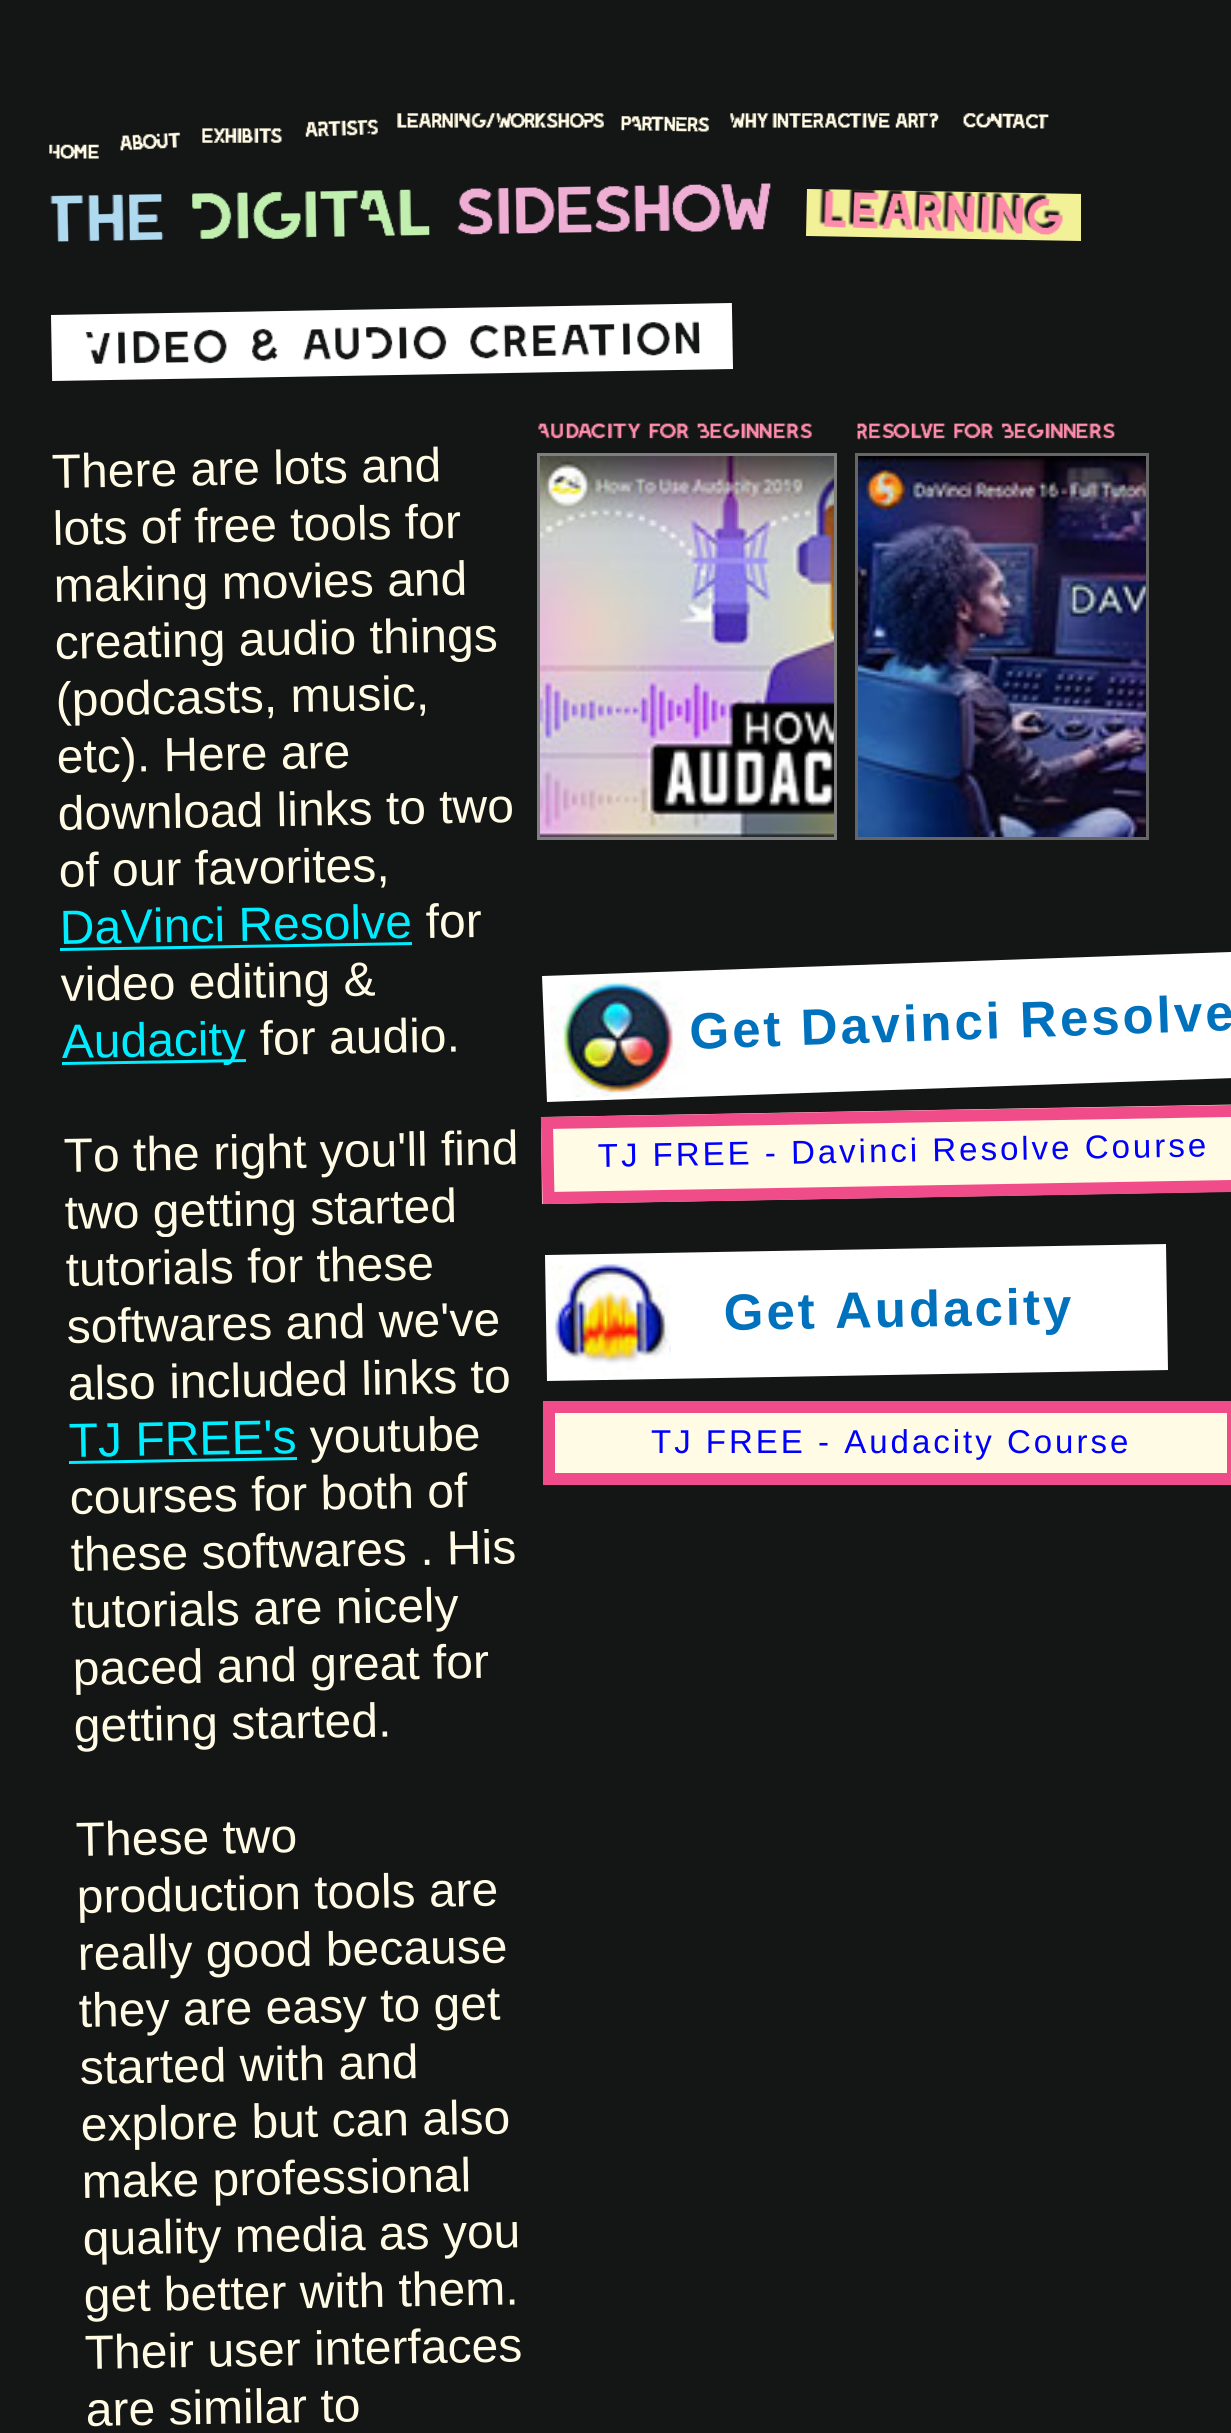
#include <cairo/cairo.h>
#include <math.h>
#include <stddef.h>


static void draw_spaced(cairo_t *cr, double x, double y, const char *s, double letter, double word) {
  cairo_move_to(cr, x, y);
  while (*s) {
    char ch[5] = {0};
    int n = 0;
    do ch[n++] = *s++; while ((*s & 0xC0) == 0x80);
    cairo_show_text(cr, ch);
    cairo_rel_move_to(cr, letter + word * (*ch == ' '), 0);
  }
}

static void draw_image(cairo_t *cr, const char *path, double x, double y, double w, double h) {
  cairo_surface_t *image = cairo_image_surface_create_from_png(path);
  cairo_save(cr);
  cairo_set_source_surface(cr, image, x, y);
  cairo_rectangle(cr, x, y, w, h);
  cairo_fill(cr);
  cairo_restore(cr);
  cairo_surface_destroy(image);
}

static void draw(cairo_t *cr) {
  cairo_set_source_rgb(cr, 20 / 255.0, 21 / 255.0, 21 / 255.0);
  cairo_paint(cr);
  draw_image(cr, "images/1.png", 49, 144, 50, 15);
  draw_image(cr, "images/2.png", 120, 132, 61, 19);
  draw_image(cr, "images/3.png", 202, 128, 80, 15);
  draw_image(cr, "images/4.png", 305, 119, 73, 18);
  draw_image(cr, "images/5.png", 397, 113, 207, 15);
  draw_image(cr, "images/6.png", 621, 115, 89, 17);
  draw_image(cr, "images/7.png", 730, 113, 209, 15);
  draw_image(cr, "images/8.png", 963, 113, 86, 16);
  draw_image(cr, "images/9.png", 50, 183, 721, 59);
  cairo_set_source_rgb(cr, 243 / 255.0, 241 / 255.0, 152 / 255.0);
  cairo_new_path(cr);
  cairo_move_to(cr, 807, 189);
  cairo_line_to(cr, 1081, 194);
  cairo_line_to(cr, 1081, 241);
  cairo_line_to(cr, 806, 236);
  cairo_close_path(cr);
  cairo_fill(cr);
  draw_image(cr, "images/10.png", 818, 189, 245, 46);
  draw_image(cr, "images/11.png", 51, 303, 682, 78);
  cairo_set_source_rgb(cr, 0, 236 / 255.0, 1);
  cairo_new_path(cr);
  cairo_move_to(cr, 60, 948);
  cairo_line_to(cr, 412, 942);
  cairo_line_to(cr, 412, 945);
  cairo_line_to(cr, 60, 951);
  cairo_close_path(cr);
  cairo_fill(cr);
  cairo_new_path(cr);
  cairo_move_to(cr, 62, 1062);
  cairo_line_to(cr, 246, 1059);
  cairo_line_to(cr, 246, 1062);
  cairo_line_to(cr, 62, 1065);
  cairo_close_path(cr);
  cairo_fill(cr);
  cairo_new_path(cr);
  cairo_move_to(cr, 69, 1461);
  cairo_line_to(cr, 297, 1457);
  cairo_line_to(cr, 297, 1460);
  cairo_line_to(cr, 69, 1464);
  cairo_close_path(cr);
  cairo_fill(cr);
  draw_image(cr, "images/12.png", 538, 423, 274, 16);
  draw_image(cr, "images/13.png", 857, 423, 258, 17);
  draw_image(cr, "images/14.png", 540, 456, 294, 381);
  cairo_rectangle(cr, 538.5, 454.5, 297, 384);
  cairo_set_source_rgb(cr, 127 / 255.0, 127 / 255.0, 127 / 255.0);
  cairo_set_line_width(cr, 3);
  cairo_stroke(cr);
  draw_image(cr, "images/15.png", 858, 456, 288, 381);
  cairo_rectangle(cr, 856.5, 454.5, 291, 384);
  cairo_set_source_rgb(cr, 102 / 255.0, 102 / 255.0, 102 / 255.0);
  cairo_stroke(cr);
  cairo_set_source_rgb(cr, 1, 1, 1);
  cairo_new_path(cr);
  cairo_move_to(cr, 542, 976);
  cairo_line_to(cr, 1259, 951);
  cairo_line_to(cr, 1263, 1077);
  cairo_line_to(cr, 547, 1102);
  cairo_close_path(cr);
  cairo_fill(cr);
  draw_image(cr, "images/16.png", 550, 980, 137, 117);
  cairo_set_source_rgb(cr, 1, 251 / 255.0, 228 / 255.0);
  cairo_new_path(cr);
  cairo_move_to(cr, 541, 1117);
  cairo_line_to(cr, 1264, 1104);
  cairo_line_to(cr, 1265, 1191);
  cairo_line_to(cr, 542, 1204);
  cairo_close_path(cr);
  cairo_fill(cr);
  cairo_new_path(cr);
  cairo_move_to(cr, 547, 1123);
  cairo_line_to(cr, 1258, 1110.5);
  cairo_line_to(cr, 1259, 1185.5);
  cairo_line_to(cr, 548.5, 1198);
  cairo_close_path(cr);
  cairo_set_source_rgb(cr, 240 / 255.0, 76 / 255.0, 137 / 255.0);
  cairo_set_line_width(cr, 12);
  cairo_stroke(cr);
  cairo_set_source_rgb(cr, 1, 1, 1);
  cairo_new_path(cr);
  cairo_move_to(cr, 545, 1255);
  cairo_line_to(cr, 1166, 1244);
  cairo_line_to(cr, 1168, 1370);
  cairo_line_to(cr, 547, 1381);
  cairo_close_path(cr);
  cairo_fill(cr);
  draw_image(cr, "images/17.png", 552, 1261, 119, 115);
  cairo_set_source_rgb(cr, 1, 251 / 255.0, 228 / 255.0);
  cairo_rectangle(cr, 549, 1407, 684, 72);
  cairo_fill_preserve(cr);
  cairo_set_source_rgb(cr, 240 / 255.0, 76 / 255.0, 137 / 255.0);
  cairo_stroke(cr);
  cairo_select_font_face(cr, "Liberation Sans", CAIRO_FONT_SLANT_NORMAL, CAIRO_FONT_WEIGHT_NORMAL);
  cairo_set_font_size(cr, 48);
  cairo_set_source_rgb(cr, 1, 251 / 255.0, 228 / 255.0);
  cairo_save(cr);
  cairo_translate(cr, 52, 488);
  cairo_rotate(cr, -1 * M_PI / 180);
  cairo_move_to(cr, 0, 0);
  cairo_show_text(cr, "There are lots and");
  cairo_restore(cr);
  cairo_save(cr);
  cairo_translate(cr, 53, 545);
  cairo_rotate(cr, -1 * M_PI / 180);
  cairo_move_to(cr, 0, 0);
  cairo_show_text(cr, "lots of free tools for");
  cairo_restore(cr);
  cairo_save(cr);
  cairo_translate(cr, 54, 602);
  cairo_rotate(cr, -1 * M_PI / 180);
  cairo_move_to(cr, 0, 0);
  cairo_show_text(cr, "making movies and");
  cairo_restore(cr);
  cairo_save(cr);
  cairo_translate(cr, 55, 659);
  cairo_rotate(cr, -1 * M_PI / 180);
  cairo_move_to(cr, 0, 0);
  cairo_show_text(cr, "creating audio things");
  cairo_restore(cr);
  cairo_save(cr);
  cairo_translate(cr, 56, 716);
  cairo_rotate(cr, -1 * M_PI / 180);
  cairo_move_to(cr, 0, 0);
  cairo_show_text(cr, "(podcasts, music,");
  cairo_restore(cr);
  cairo_save(cr);
  cairo_translate(cr, 57, 773);
  cairo_rotate(cr, -1 * M_PI / 180);
  cairo_move_to(cr, 0, 0);
  cairo_show_text(cr, "etc). Here are");
  cairo_restore(cr);
  cairo_save(cr);
  cairo_translate(cr, 58, 830);
  cairo_rotate(cr, -1 * M_PI / 180);
  cairo_move_to(cr, 0, 0);
  cairo_show_text(cr, "download links to two");
  cairo_restore(cr);
  cairo_save(cr);
  cairo_translate(cr, 59, 887);
  cairo_rotate(cr, -1 * M_PI / 180);
  cairo_move_to(cr, 0, 0);
  cairo_show_text(cr, "of our favorites,");
  cairo_restore(cr);
  cairo_set_source_rgb(cr, 0, 236 / 255.0, 1);
  cairo_save(cr);
  cairo_translate(cr, 60, 944);
  cairo_rotate(cr, -1 * M_PI / 180);
  cairo_move_to(cr, 0, 0);
  cairo_show_text(cr, "DaVinci Resolve");
  cairo_restore(cr);
  cairo_set_source_rgb(cr, 1, 251 / 255.0, 228 / 255.0);
  cairo_save(cr);
  cairo_translate(cr, 426, 938);
  cairo_rotate(cr, -1 * M_PI / 180);
  cairo_move_to(cr, 0, 0);
  cairo_show_text(cr, "for");
  cairo_restore(cr);
  cairo_save(cr);
  cairo_translate(cr, 61, 1001);
  cairo_rotate(cr, -1 * M_PI / 180);
  cairo_move_to(cr, 0, 0);
  cairo_show_text(cr, "video editing &");
  cairo_restore(cr);
  cairo_set_source_rgb(cr, 0, 236 / 255.0, 1);
  cairo_save(cr);
  cairo_translate(cr, 62, 1058);
  cairo_rotate(cr, -1 * M_PI / 180);
  cairo_move_to(cr, 0, 0);
  cairo_show_text(cr, "Audacity");
  cairo_restore(cr);
  cairo_set_source_rgb(cr, 1, 251 / 255.0, 228 / 255.0);
  cairo_save(cr);
  cairo_translate(cr, 260, 1055);
  cairo_rotate(cr, -1 * M_PI / 180);
  cairo_move_to(cr, 0, 0);
  cairo_show_text(cr, "for audio.");
  cairo_restore(cr);
  cairo_save(cr);
  cairo_translate(cr, 64, 1172);
  cairo_rotate(cr, -1 * M_PI / 180);
  cairo_move_to(cr, 0, 0);
  cairo_show_text(cr, "To the right you'll find");
  cairo_restore(cr);
  cairo_save(cr);
  cairo_translate(cr, 65, 1229);
  cairo_rotate(cr, -1 * M_PI / 180);
  cairo_move_to(cr, 0, 0);
  cairo_show_text(cr, "two getting started");
  cairo_restore(cr);
  cairo_save(cr);
  cairo_translate(cr, 66, 1286);
  cairo_rotate(cr, -1 * M_PI / 180);
  cairo_move_to(cr, 0, 0);
  cairo_show_text(cr, "tutorials for these");
  cairo_restore(cr);
  cairo_save(cr);
  cairo_translate(cr, 67, 1343);
  cairo_rotate(cr, -1 * M_PI / 180);
  cairo_move_to(cr, 0, 0);
  cairo_show_text(cr, "softwares and we've");
  cairo_restore(cr);
  cairo_save(cr);
  cairo_translate(cr, 68, 1400);
  cairo_rotate(cr, -1 * M_PI / 180);
  cairo_move_to(cr, 0, 0);
  cairo_show_text(cr, "also included links to");
  cairo_restore(cr);
  cairo_set_source_rgb(cr, 0, 236 / 255.0, 1);
  cairo_save(cr);
  cairo_translate(cr, 69, 1457);
  cairo_rotate(cr, -1 * M_PI / 180);
  cairo_move_to(cr, 0, 0);
  cairo_show_text(cr, "TJ FREE's");
  cairo_restore(cr);
  cairo_set_source_rgb(cr, 1, 251 / 255.0, 228 / 255.0);
  cairo_save(cr);
  cairo_translate(cr, 310, 1453);
  cairo_rotate(cr, -1 * M_PI / 180);
  cairo_move_to(cr, 0, 0);
  cairo_show_text(cr, "youtube");
  cairo_restore(cr);
  cairo_save(cr);
  cairo_translate(cr, 70, 1514);
  cairo_rotate(cr, -1 * M_PI / 180);
  cairo_move_to(cr, 0, 0);
  cairo_show_text(cr, "courses for both of");
  cairo_restore(cr);
  cairo_save(cr);
  cairo_translate(cr, 71, 1571);
  cairo_rotate(cr, -1 * M_PI / 180);
  cairo_move_to(cr, 0, 0);
  cairo_show_text(cr, "these softwares . His");
  cairo_restore(cr);
  cairo_save(cr);
  cairo_translate(cr, 72, 1628);
  cairo_rotate(cr, -1 * M_PI / 180);
  cairo_move_to(cr, 0, 0);
  cairo_show_text(cr, "tutorials are nicely");
  cairo_restore(cr);
  cairo_save(cr);
  cairo_translate(cr, 73, 1685);
  cairo_rotate(cr, -1 * M_PI / 180);
  cairo_move_to(cr, 0, 0);
  cairo_show_text(cr, "paced and great for");
  cairo_restore(cr);
  cairo_save(cr);
  cairo_translate(cr, 74, 1742);
  cairo_rotate(cr, -1 * M_PI / 180);
  cairo_move_to(cr, 0, 0);
  cairo_show_text(cr, "getting started.");
  cairo_restore(cr);
  cairo_save(cr);
  cairo_translate(cr, 76, 1856);
  cairo_rotate(cr, -1 * M_PI / 180);
  cairo_move_to(cr, 0, 0);
  cairo_show_text(cr, "These two");
  cairo_restore(cr);
  cairo_save(cr);
  cairo_translate(cr, 77, 1913);
  cairo_rotate(cr, -1 * M_PI / 180);
  cairo_move_to(cr, 0, 0);
  cairo_show_text(cr, "production tools are");
  cairo_restore(cr);
  cairo_save(cr);
  cairo_translate(cr, 78, 1970);
  cairo_rotate(cr, -1 * M_PI / 180);
  cairo_move_to(cr, 0, 0);
  cairo_show_text(cr, "really good because");
  cairo_restore(cr);
  cairo_save(cr);
  cairo_translate(cr, 79, 2027);
  cairo_rotate(cr, -1 * M_PI / 180);
  cairo_move_to(cr, 0, 0);
  cairo_show_text(cr, "they are easy to get");
  cairo_restore(cr);
  cairo_save(cr);
  cairo_translate(cr, 80, 2084);
  cairo_rotate(cr, -1 * M_PI / 180);
  cairo_move_to(cr, 0, 0);
  cairo_show_text(cr, "started with and");
  cairo_restore(cr);
  cairo_save(cr);
  cairo_translate(cr, 81, 2141);
  cairo_rotate(cr, -1 * M_PI / 180);
  cairo_move_to(cr, 0, 0);
  cairo_show_text(cr, "explore but can also");
  cairo_restore(cr);
  cairo_save(cr);
  cairo_translate(cr, 82, 2198);
  cairo_rotate(cr, -1 * M_PI / 180);
  cairo_move_to(cr, 0, 0);
  cairo_show_text(cr, "make professional");
  cairo_restore(cr);
  cairo_save(cr);
  cairo_translate(cr, 83, 2255);
  cairo_rotate(cr, -1 * M_PI / 180);
  cairo_move_to(cr, 0, 0);
  cairo_show_text(cr, "quality media as you");
  cairo_restore(cr);
  cairo_save(cr);
  cairo_translate(cr, 84, 2312);
  cairo_rotate(cr, -1 * M_PI / 180);
  cairo_move_to(cr, 0, 0);
  cairo_show_text(cr, "get better with them.");
  cairo_restore(cr);
  cairo_save(cr);
  cairo_translate(cr, 85, 2369);
  cairo_rotate(cr, -1 * M_PI / 180);
  cairo_move_to(cr, 0, 0);
  cairo_show_text(cr, "Their user interfaces");
  cairo_restore(cr);
  cairo_save(cr);
  cairo_translate(cr, 86, 2426);
  cairo_rotate(cr, -1 * M_PI / 180);
  cairo_move_to(cr, 0, 0);
  cairo_show_text(cr, "are similar to");
  cairo_restore(cr);
  cairo_select_font_face(cr, "Liberation Sans", CAIRO_FONT_SLANT_NORMAL, CAIRO_FONT_WEIGHT_BOLD);
  cairo_set_font_size(cr, 51);
  cairo_set_source_rgb(cr, 0, 113 / 255.0, 188 / 255.0);
  cairo_save(cr);
  cairo_translate(cr, 690, 1049);
  cairo_rotate(cr, -2 * M_PI / 180);
  draw_spaced(cr, 0, 0, "Get Davinci Resolve", 3, 0);
  cairo_restore(cr);
  cairo_select_font_face(cr, "Liberation Sans", CAIRO_FONT_SLANT_NORMAL, CAIRO_FONT_WEIGHT_NORMAL);
  cairo_set_font_size(cr, 33);
  cairo_set_source_rgb(cr, 0, 0, 1);
  cairo_save(cr);
  cairo_translate(cr, 598, 1167);
  cairo_rotate(cr, -1 * M_PI / 180);
  draw_spaced(cr, 0, 0, "TJ FREE - Davinci Resolve Course", 3, 0);
  cairo_restore(cr);
  cairo_select_font_face(cr, "Liberation Sans", CAIRO_FONT_SLANT_NORMAL, CAIRO_FONT_WEIGHT_BOLD);
  cairo_set_font_size(cr, 51);
  cairo_set_source_rgb(cr, 0, 113 / 255.0, 188 / 255.0);
  cairo_save(cr);
  cairo_translate(cr, 724, 1330);
  cairo_rotate(cr, -1 * M_PI / 180);
  draw_spaced(cr, 0, 0, "Get Audacity", 3, 0);
  cairo_restore(cr);
  cairo_select_font_face(cr, "Liberation Sans", CAIRO_FONT_SLANT_NORMAL, CAIRO_FONT_WEIGHT_NORMAL);
  cairo_set_font_size(cr, 33);
  cairo_set_source_rgb(cr, 0, 0, 1);
  draw_spaced(cr, 651, 1453, "TJ FREE - Audacity Course", 3, 0);
}

int main(void) {
  cairo_surface_t *surface = cairo_image_surface_create(CAIRO_FORMAT_RGB24, 1231, 2433);
  cairo_t *cr = cairo_create(surface);
  cairo_font_options_t *options = cairo_font_options_create();
  cairo_font_options_set_hint_metrics(options, CAIRO_HINT_METRICS_OFF);
  cairo_font_options_set_hint_style(options, CAIRO_HINT_STYLE_NONE);
  cairo_set_font_options(cr, options);
  cairo_set_miter_limit(cr, 4);
  draw(cr);
  cairo_surface_write_to_png(surface, "out.png");
  cairo_font_options_destroy(options);
  cairo_destroy(cr);
  cairo_surface_destroy(surface);
  return 0;
}
